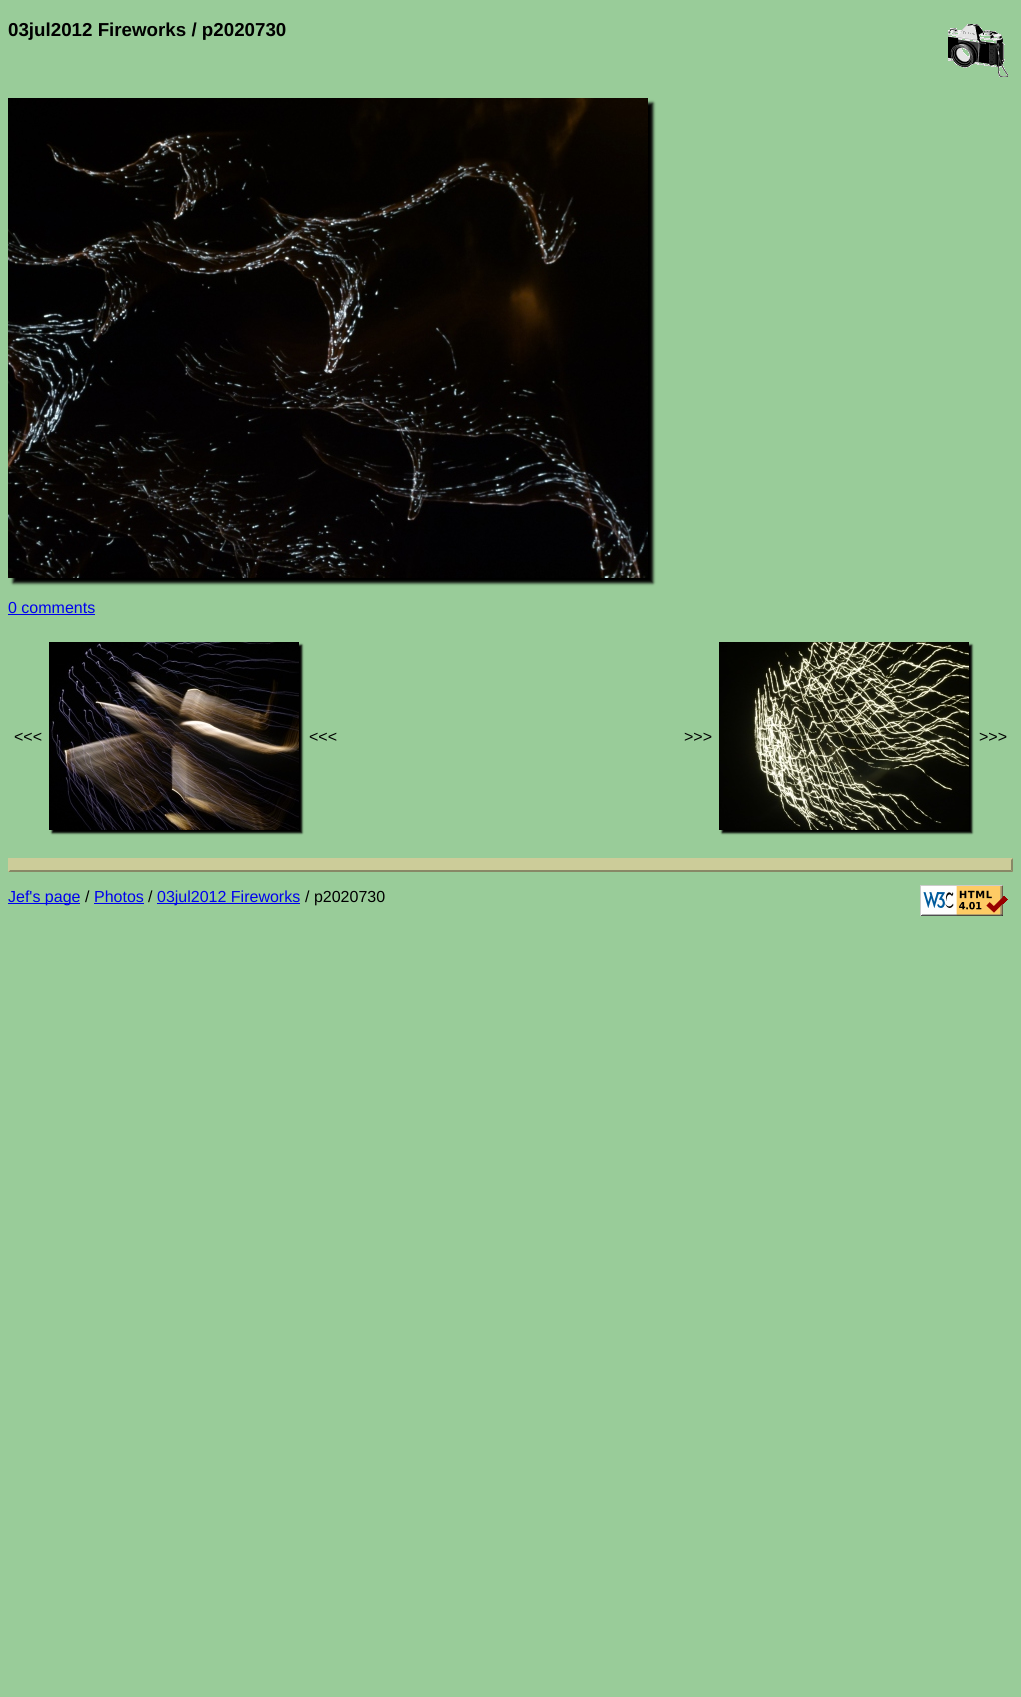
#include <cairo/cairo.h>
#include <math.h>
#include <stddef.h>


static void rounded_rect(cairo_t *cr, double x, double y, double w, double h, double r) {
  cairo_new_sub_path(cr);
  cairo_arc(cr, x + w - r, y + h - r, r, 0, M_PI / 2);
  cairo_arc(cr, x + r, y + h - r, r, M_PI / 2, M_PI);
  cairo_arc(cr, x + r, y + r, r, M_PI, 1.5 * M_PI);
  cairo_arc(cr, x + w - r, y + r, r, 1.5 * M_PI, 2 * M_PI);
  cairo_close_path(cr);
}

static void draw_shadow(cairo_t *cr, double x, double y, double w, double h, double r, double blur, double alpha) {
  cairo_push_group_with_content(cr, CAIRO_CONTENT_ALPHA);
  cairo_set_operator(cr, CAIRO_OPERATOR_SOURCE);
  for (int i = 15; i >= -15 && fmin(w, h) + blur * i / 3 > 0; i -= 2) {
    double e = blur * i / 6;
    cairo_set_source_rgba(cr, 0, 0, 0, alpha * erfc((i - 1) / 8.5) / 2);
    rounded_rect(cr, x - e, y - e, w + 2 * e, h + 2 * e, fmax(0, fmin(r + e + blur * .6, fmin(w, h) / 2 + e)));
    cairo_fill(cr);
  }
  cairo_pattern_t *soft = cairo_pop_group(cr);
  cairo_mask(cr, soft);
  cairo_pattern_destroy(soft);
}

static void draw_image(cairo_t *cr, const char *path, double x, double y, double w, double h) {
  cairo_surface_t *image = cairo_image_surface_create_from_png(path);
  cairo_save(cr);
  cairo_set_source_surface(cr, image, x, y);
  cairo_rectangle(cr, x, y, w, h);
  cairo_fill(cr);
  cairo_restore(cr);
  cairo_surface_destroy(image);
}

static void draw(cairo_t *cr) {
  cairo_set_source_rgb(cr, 153 / 255.0, 204 / 255.0, 153 / 255.0);
  cairo_paint(cr);
  draw_image(cr, "images/1.png", 948, 24, 60, 53);
  cairo_set_source_rgb(cr, 0, 0, 0);
  draw_shadow(cr, 13, 103, 640, 480, 0, 1.5, 1);
  draw_image(cr, "images/2.png", 8, 98, 640, 480);
  cairo_set_source_rgb(cr, 0, 0, 238 / 255.0);
  cairo_rectangle(cr, 8, 614, 87, 1);
  cairo_fill(cr);
  cairo_set_source_rgb(cr, 0, 0, 0);
  draw_shadow(cr, 52, 645, 250, 188, 0, 1, 1);
  draw_image(cr, "images/3.png", 49, 642, 250, 188);
  draw_shadow(cr, 722, 645, 250, 188, 0, 1, 1);
  draw_image(cr, "images/4.png", 719, 642, 250, 188);
  cairo_set_source_rgb(cr, 204 / 255.0, 204 / 255.0, 153 / 255.0);
  cairo_rectangle(cr, 8, 858, 1005, 14);
  cairo_fill(cr);
  cairo_set_source_rgb(cr, 136 / 255.0, 136 / 255.0, 102 / 255.0);
  cairo_new_path(cr);
  cairo_move_to(cr, 1013, 858);
  cairo_line_to(cr, 1013, 872);
  cairo_line_to(cr, 1011, 870);
  cairo_line_to(cr, 1011, 860);
  cairo_close_path(cr);
  cairo_fill(cr);
  cairo_new_path(cr);
  cairo_move_to(cr, 1013, 872);
  cairo_line_to(cr, 8, 872);
  cairo_line_to(cr, 10, 870);
  cairo_line_to(cr, 1011, 870);
  cairo_close_path(cr);
  cairo_fill(cr);
  cairo_set_source_rgb(cr, 204 / 255.0, 204 / 255.0, 153 / 255.0);
  cairo_new_path(cr);
  cairo_move_to(cr, 8, 872);
  cairo_line_to(cr, 8, 858);
  cairo_line_to(cr, 10, 860);
  cairo_line_to(cr, 10, 870);
  cairo_close_path(cr);
  cairo_fill(cr);
  cairo_set_source_rgb(cr, 0, 0, 238 / 255.0);
  cairo_rectangle(cr, 8, 903, 72, 1);
  cairo_fill(cr);
  cairo_rectangle(cr, 94, 903, 50, 1);
  cairo_fill(cr);
  cairo_rectangle(cr, 157, 903, 143, 1);
  cairo_fill(cr);
  draw_image(cr, "images/5.png", 920, 885, 88, 31);
  cairo_select_font_face(cr, "Liberation Sans", CAIRO_FONT_SLANT_NORMAL, CAIRO_FONT_WEIGHT_BOLD);
  cairo_set_font_size(cr, 18.75);
  cairo_set_source_rgb(cr, 0, 0, 0);
  cairo_move_to(cr, 8, 36);
  cairo_show_text(cr, "03jul2012 Fireworks / p2020730");
  cairo_select_font_face(cr, "Liberation Sans", CAIRO_FONT_SLANT_NORMAL, CAIRO_FONT_WEIGHT_NORMAL);
  cairo_set_font_size(cr, 16);
  cairo_set_source_rgb(cr, 0, 0, 238 / 255.0);
  cairo_move_to(cr, 8, 613);
  cairo_show_text(cr, "0 comments");
  cairo_set_source_rgb(cr, 0, 0, 0);
  cairo_move_to(cr, 14, 742);
  cairo_show_text(cr, "<<<");
  cairo_move_to(cr, 309, 742);
  cairo_show_text(cr, "<<<");
  cairo_move_to(cr, 684, 742);
  cairo_show_text(cr, ">>>");
  cairo_move_to(cr, 979, 742);
  cairo_show_text(cr, ">>>");
  cairo_set_source_rgb(cr, 0, 0, 238 / 255.0);
  cairo_move_to(cr, 8, 902);
  cairo_show_text(cr, "Jef's page");
  cairo_set_source_rgb(cr, 0, 0, 0);
  cairo_move_to(cr, 85, 902);
  cairo_show_text(cr, "/");
  cairo_set_source_rgb(cr, 0, 0, 238 / 255.0);
  cairo_move_to(cr, 94, 902);
  cairo_show_text(cr, "Photos");
  cairo_set_source_rgb(cr, 0, 0, 0);
  cairo_move_to(cr, 148, 902);
  cairo_show_text(cr, "/");
  cairo_set_source_rgb(cr, 0, 0, 238 / 255.0);
  cairo_move_to(cr, 157, 902);
  cairo_show_text(cr, "03jul2012 Fireworks");
  cairo_set_source_rgb(cr, 0, 0, 0);
  cairo_move_to(cr, 305, 902);
  cairo_show_text(cr, "/ p2020730");
}

int main(void) {
  cairo_surface_t *surface = cairo_image_surface_create(CAIRO_FORMAT_RGB24, 1021, 1697);
  cairo_t *cr = cairo_create(surface);
  cairo_font_options_t *options = cairo_font_options_create();
  cairo_font_options_set_hint_metrics(options, CAIRO_HINT_METRICS_OFF);
  cairo_font_options_set_hint_style(options, CAIRO_HINT_STYLE_NONE);
  cairo_set_font_options(cr, options);
  cairo_set_miter_limit(cr, 4);
  draw(cr);
  cairo_surface_write_to_png(surface, "out.png");
  cairo_font_options_destroy(options);
  cairo_destroy(cr);
  cairo_surface_destroy(surface);
  return 0;
}
